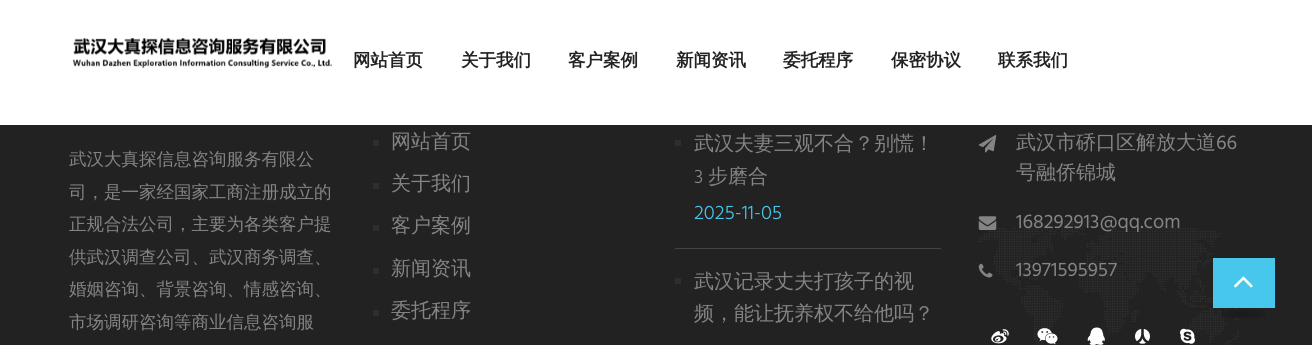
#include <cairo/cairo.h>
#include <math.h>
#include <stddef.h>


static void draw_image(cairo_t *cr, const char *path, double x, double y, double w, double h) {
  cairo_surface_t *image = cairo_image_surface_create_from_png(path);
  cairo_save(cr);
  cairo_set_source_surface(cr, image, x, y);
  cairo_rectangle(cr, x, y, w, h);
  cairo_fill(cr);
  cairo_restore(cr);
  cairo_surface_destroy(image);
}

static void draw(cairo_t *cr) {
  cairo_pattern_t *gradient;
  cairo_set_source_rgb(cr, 34 / 255.0, 34 / 255.0, 34 / 255.0);
  cairo_paint(cr);
  cairo_set_source_rgb(cr, 1, 1, 1);
  cairo_rectangle(cr, 0, 0, 1312, 125);
  cairo_fill(cr);
  draw_image(cr, "images/1.png", 72, 38, 260, 31);
  cairo_set_source_rgb(cr, 46 / 255.0, 46 / 255.0, 46 / 255.0);
  cairo_rectangle(cr, 373, 140, 6, 6);
  cairo_fill(cr);
  cairo_rectangle(cr, 373, 183, 6, 6);
  cairo_fill(cr);
  cairo_rectangle(cr, 373, 225, 6, 6);
  cairo_fill(cr);
  cairo_rectangle(cr, 373, 268, 6, 6);
  cairo_fill(cr);
  cairo_rectangle(cr, 373, 310, 6, 6);
  cairo_fill(cr);
  cairo_set_source_rgb(cr, 67 / 255.0, 67 / 255.0, 67 / 255.0);
  cairo_rectangle(cr, 675, 248, 266, 1);
  cairo_fill(cr);
  cairo_set_source_rgb(cr, 46 / 255.0, 46 / 255.0, 46 / 255.0);
  cairo_rectangle(cr, 675, 140, 6, 6);
  cairo_fill(cr);
  cairo_rectangle(cr, 675, 278, 6, 6);
  cairo_fill(cr);
  draw_image(cr, "images/2.png", 978, 220, 261, 125);
  draw_image(cr, "images/3.png", 978, 135, 19, 18);
  draw_image(cr, "images/4.png", 978, 216, 19, 14);
  draw_image(cr, "images/5.png", 978, 263, 15, 15);
  draw_image(cr, "images/6.png", 991, 329, 18, 15);
  draw_image(cr, "images/7.png", 1037, 328, 21, 17);
  draw_image(cr, "images/8.png", 1087, 327, 18, 18);
  draw_image(cr, "images/9.png", 1135, 329, 15, 15);
  draw_image(cr, "images/10.png", 1180, 328, 15, 16);
  cairo_set_source_rgb(cr, 72 / 255.0, 199 / 255.0, 236 / 255.0);
  cairo_rectangle(cr, 1213, 258, 62, 50);
  cairo_fill(cr);
  draw_image(cr, "images/11.png", 1234, 276, 19, 12);
  gradient = cairo_pattern_create_radial(0, 0, 0, 0, 0, 1);
  cairo_pattern_set_matrix(gradient, &(cairo_matrix_t){1.0 / 40, 0, 0, 1.0 / 9, -1.0 * 1244 / 40, -1.0 * 314 / 9});
  cairo_pattern_add_color_stop_rgba(gradient, 0, 0, 0, 0, 0.25);
  cairo_pattern_add_color_stop_rgba(gradient, 0.8, 0, 0, 0, 0);
  cairo_set_source(cr, gradient);
  cairo_pattern_destroy(gradient);
  cairo_rectangle(cr, 1220, 309, 46, 10);
  cairo_fill(cr);
  cairo_select_font_face(cr, "WenQuanYi Zen Hei", CAIRO_FONT_SLANT_NORMAL, CAIRO_FONT_WEIGHT_BOLD);
  cairo_set_font_size(cr, 17.5);
  cairo_set_source_rgb(cr, 34 / 255.0, 34 / 255.0, 34 / 255.0);
  cairo_move_to(cr, 353, 66);
  cairo_show_text(cr, "网站首页");
  cairo_move_to(cr, 461, 66);
  cairo_show_text(cr, "关于我们");
  cairo_move_to(cr, 568, 66);
  cairo_show_text(cr, "客户案例");
  cairo_move_to(cr, 676, 66);
  cairo_show_text(cr, "新闻资讯");
  cairo_move_to(cr, 783, 66);
  cairo_show_text(cr, "委托程序");
  cairo_move_to(cr, 891, 66);
  cairo_show_text(cr, "保密协议");
  cairo_move_to(cr, 998, 66);
  cairo_show_text(cr, "联系我们");
  cairo_select_font_face(cr, "WenQuanYi Zen Hei Medium", CAIRO_FONT_SLANT_NORMAL, CAIRO_FONT_WEIGHT_NORMAL);
  cairo_set_source_rgb(cr, 132 / 255.0, 132 / 255.0, 132 / 255.0);
  cairo_move_to(cr, 69, 165);
  cairo_show_text(cr, "武汉大真探信息咨询服务有限公");
  cairo_move_to(cr, 69, 198);
  cairo_show_text(cr, "司，是一家经国家工商注册成立的");
  cairo_move_to(cr, 69, 230);
  cairo_show_text(cr, "正规合法公司，主要为各类客户提");
  cairo_move_to(cr, 69, 263);
  cairo_show_text(cr, "供武汉调查公司、武汉商务调查、");
  cairo_move_to(cr, 69, 295);
  cairo_show_text(cr, "婚姻咨询、背景咨询、情感咨询、");
  cairo_move_to(cr, 69, 328);
  cairo_show_text(cr, "市场调研咨询等商业信息咨询服");
  cairo_set_font_size(cr, 20);
  cairo_move_to(cr, 391, 148);
  cairo_show_text(cr, "网站首页");
  cairo_move_to(cr, 391, 190);
  cairo_show_text(cr, "关于我们");
  cairo_move_to(cr, 391, 232);
  cairo_show_text(cr, "客户案例");
  cairo_move_to(cr, 391, 275);
  cairo_show_text(cr, "新闻资讯");
  cairo_move_to(cr, 391, 317);
  cairo_show_text(cr, "委托程序");
  cairo_move_to(cr, 694, 150);
  cairo_show_text(cr, "武汉夫妻三观不合？别慌！");
  cairo_select_font_face(cr, "Hind Light", CAIRO_FONT_SLANT_NORMAL, CAIRO_FONT_WEIGHT_NORMAL);
  cairo_move_to(cr, 694, 183);
  cairo_show_text(cr, "3");
  cairo_select_font_face(cr, "WenQuanYi Zen Hei Medium", CAIRO_FONT_SLANT_NORMAL, CAIRO_FONT_WEIGHT_NORMAL);
  cairo_move_to(cr, 708, 183);
  cairo_show_text(cr, "步磨合");
  cairo_select_font_face(cr, "Hind Light", CAIRO_FONT_SLANT_NORMAL, CAIRO_FONT_WEIGHT_NORMAL);
  cairo_set_source_rgb(cr, 72 / 255.0, 199 / 255.0, 236 / 255.0);
  cairo_move_to(cr, 694, 219);
  cairo_show_text(cr, "2025-11-05");
  cairo_select_font_face(cr, "WenQuanYi Zen Hei Medium", CAIRO_FONT_SLANT_NORMAL, CAIRO_FONT_WEIGHT_NORMAL);
  cairo_set_source_rgb(cr, 132 / 255.0, 132 / 255.0, 132 / 255.0);
  cairo_move_to(cr, 694, 288);
  cairo_show_text(cr, "武汉记录丈夫打孩子的视");
  cairo_move_to(cr, 694, 320);
  cairo_show_text(cr, "频，能让抚养权不给他吗？");
  cairo_move_to(cr, 1016, 149);
  cairo_show_text(cr, "武汉市硚口区解放大道");
  cairo_select_font_face(cr, "Hind", CAIRO_FONT_SLANT_NORMAL, CAIRO_FONT_WEIGHT_NORMAL);
  cairo_move_to(cr, 1216, 149);
  cairo_show_text(cr, "66");
  cairo_select_font_face(cr, "WenQuanYi Zen Hei Medium", CAIRO_FONT_SLANT_NORMAL, CAIRO_FONT_WEIGHT_NORMAL);
  cairo_move_to(cr, 1016, 179);
  cairo_show_text(cr, "号融侨锦城");
  cairo_select_font_face(cr, "Hind", CAIRO_FONT_SLANT_NORMAL, CAIRO_FONT_WEIGHT_NORMAL);
  cairo_move_to(cr, 1016, 228);
  cairo_show_text(cr, "168292913@qq.com");
  cairo_move_to(cr, 1016, 276);
  cairo_show_text(cr, "13971595957");
}

int main(void) {
  cairo_surface_t *surface = cairo_image_surface_create(CAIRO_FORMAT_RGB24, 1312, 345);
  cairo_t *cr = cairo_create(surface);
  cairo_font_options_t *options = cairo_font_options_create();
  cairo_font_options_set_hint_metrics(options, CAIRO_HINT_METRICS_OFF);
  cairo_font_options_set_hint_style(options, CAIRO_HINT_STYLE_NONE);
  cairo_set_font_options(cr, options);
  cairo_set_miter_limit(cr, 4);
  draw(cr);
  cairo_surface_write_to_png(surface, "out.png");
  cairo_font_options_destroy(options);
  cairo_destroy(cr);
  cairo_surface_destroy(surface);
  return 0;
}
